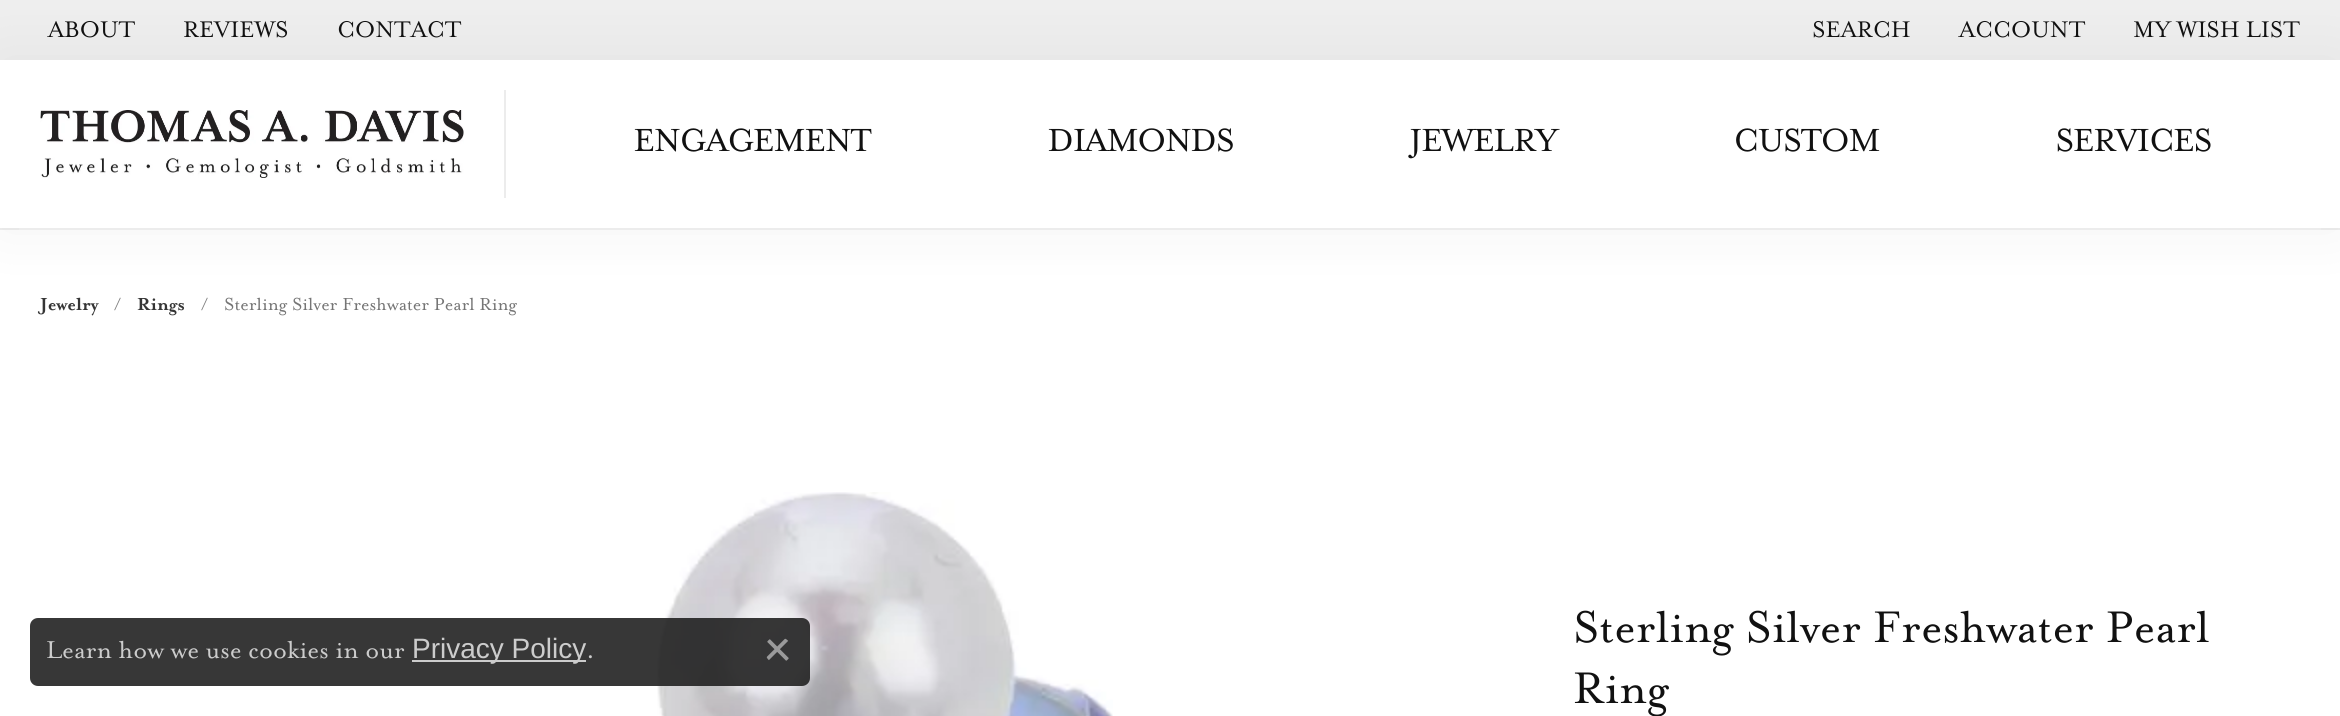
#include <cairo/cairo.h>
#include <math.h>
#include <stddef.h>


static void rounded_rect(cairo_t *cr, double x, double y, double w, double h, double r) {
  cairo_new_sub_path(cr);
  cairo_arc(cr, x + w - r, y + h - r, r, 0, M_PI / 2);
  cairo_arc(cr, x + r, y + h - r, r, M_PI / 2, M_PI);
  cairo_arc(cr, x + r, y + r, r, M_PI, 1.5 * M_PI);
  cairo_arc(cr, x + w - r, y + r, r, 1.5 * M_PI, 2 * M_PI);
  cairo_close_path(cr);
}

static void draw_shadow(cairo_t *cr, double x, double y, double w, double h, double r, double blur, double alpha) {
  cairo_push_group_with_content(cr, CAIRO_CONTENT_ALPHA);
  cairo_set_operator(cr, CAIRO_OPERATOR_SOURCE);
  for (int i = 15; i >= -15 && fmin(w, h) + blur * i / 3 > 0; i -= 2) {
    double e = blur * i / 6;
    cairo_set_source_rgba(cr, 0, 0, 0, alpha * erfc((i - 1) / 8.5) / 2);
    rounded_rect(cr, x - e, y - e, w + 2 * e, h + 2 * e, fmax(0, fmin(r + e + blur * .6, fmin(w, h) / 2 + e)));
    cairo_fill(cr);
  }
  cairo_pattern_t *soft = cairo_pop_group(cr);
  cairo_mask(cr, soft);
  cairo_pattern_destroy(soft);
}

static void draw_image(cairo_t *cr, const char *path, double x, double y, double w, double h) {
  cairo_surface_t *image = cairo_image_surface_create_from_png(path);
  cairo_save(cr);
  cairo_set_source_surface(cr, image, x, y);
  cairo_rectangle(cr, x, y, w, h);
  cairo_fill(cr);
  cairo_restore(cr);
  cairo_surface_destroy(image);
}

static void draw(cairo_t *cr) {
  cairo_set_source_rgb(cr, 238 / 255.0, 238 / 255.0, 238 / 255.0);
  cairo_paint(cr);
  cairo_set_source_rgb(cr, 1, 1, 1);
  cairo_rectangle(cr, 0, 230, 2340, 486);
  cairo_fill(cr);
  cairo_set_source_rgb(cr, 0, 0, 0);
  draw_shadow(cr, 0, 60, 2340, 170, 0, 30, 0.05);
  cairo_set_source_rgb(cr, 1, 1, 1);
  cairo_rectangle(cr, 0, 60, 2340, 168);
  cairo_fill(cr);
  cairo_set_source_rgb(cr, 236 / 255.0, 236 / 255.0, 236 / 255.0);
  cairo_rectangle(cr, 19, 228, 2302, 2);
  cairo_fill(cr);
  cairo_rectangle(cr, 504, 90, 2, 108);
  cairo_fill(cr);
  draw_image(cr, "images/1.png", 40, 110, 424, 68);
  draw_image(cr, "images/2.png", 657, 492, 456, 224);
  cairo_set_source_rgba(cr, 34 / 255.0, 34 / 255.0, 34 / 255.0, 0.9);
  rounded_rect(cr, 30, 618, 780, 68, 8);
  cairo_fill(cr);
  cairo_set_source_rgb(cr, 204 / 255.0, 204 / 255.0, 204 / 255.0);
  cairo_rectangle(cr, 412, 660, 174, 2);
  cairo_fill(cr);
  draw_image(cr, "images/3.png", 766, 638, 23, 23);
  cairo_select_font_face(cr, "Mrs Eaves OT", CAIRO_FONT_SLANT_NORMAL, CAIRO_FONT_WEIGHT_NORMAL);
  cairo_set_font_size(cr, 26);
  cairo_set_source_rgb(cr, 17 / 255.0, 17 / 255.0, 17 / 255.0);
  cairo_move_to(cr, 48, 37);
  cairo_show_text(cr, "ABOUT");
  cairo_move_to(cr, 183, 37);
  cairo_show_text(cr, "REVIEWS");
  cairo_move_to(cr, 337, 37);
  cairo_show_text(cr, "CONTACT");
  cairo_move_to(cr, 1812, 37);
  cairo_show_text(cr, "SEARCH");
  cairo_move_to(cr, 1959, 37);
  cairo_show_text(cr, "ACCOUNT");
  cairo_move_to(cr, 2133, 37);
  cairo_show_text(cr, "MY WISH LIST");
  cairo_select_font_face(cr, "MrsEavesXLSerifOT", CAIRO_FONT_SLANT_NORMAL, CAIRO_FONT_WEIGHT_NORMAL);
  cairo_set_font_size(cr, 36.75);
  cairo_move_to(cr, 634, 151);
  cairo_show_text(cr, "ENGAGEMENT");
  cairo_move_to(cr, 1048, 151);
  cairo_show_text(cr, "DIAMONDS");
  cairo_move_to(cr, 1410, 151);
  cairo_show_text(cr, "JEWELRY");
  cairo_move_to(cr, 1734, 151);
  cairo_show_text(cr, "CUSTOM");
  cairo_move_to(cr, 2056, 151);
  cairo_show_text(cr, "SERVICES");
  cairo_select_font_face(cr, "Mrs Eaves OT", CAIRO_FONT_SLANT_NORMAL, CAIRO_FONT_WEIGHT_BOLD);
  cairo_set_font_size(cr, 20);
  cairo_set_source_rgb(cr, 53 / 255.0, 53 / 255.0, 53 / 255.0);
  cairo_move_to(cr, 40, 310);
  cairo_show_text(cr, "Jewelry");
  cairo_select_font_face(cr, "Mrs Eaves OT", CAIRO_FONT_SLANT_NORMAL, CAIRO_FONT_WEIGHT_NORMAL);
  cairo_set_source_rgb(cr, 125 / 255.0, 125 / 255.0, 125 / 255.0);
  cairo_move_to(cr, 114, 310);
  cairo_show_text(cr, "/");
  cairo_select_font_face(cr, "Mrs Eaves OT", CAIRO_FONT_SLANT_NORMAL, CAIRO_FONT_WEIGHT_BOLD);
  cairo_set_source_rgb(cr, 53 / 255.0, 53 / 255.0, 53 / 255.0);
  cairo_move_to(cr, 137, 310);
  cairo_show_text(cr, "Rings");
  cairo_select_font_face(cr, "Mrs Eaves OT", CAIRO_FONT_SLANT_NORMAL, CAIRO_FONT_WEIGHT_NORMAL);
  cairo_set_source_rgb(cr, 125 / 255.0, 125 / 255.0, 125 / 255.0);
  cairo_move_to(cr, 201, 310);
  cairo_show_text(cr, "/");
  cairo_set_source_rgb(cr, 117 / 255.0, 117 / 255.0, 117 / 255.0);
  cairo_move_to(cr, 224, 310);
  cairo_show_text(cr, "Sterling Silver Freshwater Pearl Ring");
  cairo_set_font_size(cr, 50.8);
  cairo_set_source_rgb(cr, 17 / 255.0, 17 / 255.0, 17 / 255.0);
  cairo_move_to(cr, 1573, 642);
  cairo_show_text(cr, "Sterling Silver Freshwater Pearl");
  cairo_move_to(cr, 1573, 703);
  cairo_show_text(cr, "Ring");
  cairo_set_font_size(cr, 28);
  cairo_set_source_rgb(cr, 204 / 255.0, 204 / 255.0, 204 / 255.0);
  cairo_move_to(cr, 46, 658);
  cairo_show_text(cr, "Learn how we use cookies in our");
  cairo_select_font_face(cr, "Liberation Sans", CAIRO_FONT_SLANT_NORMAL, CAIRO_FONT_WEIGHT_NORMAL);
  cairo_move_to(cr, 412, 658);
  cairo_show_text(cr, "Privacy Policy");
  cairo_select_font_face(cr, "Mrs Eaves OT", CAIRO_FONT_SLANT_NORMAL, CAIRO_FONT_WEIGHT_NORMAL);
  cairo_move_to(cr, 586, 658);
  cairo_show_text(cr, ".");
}

int main(void) {
  cairo_surface_t *surface = cairo_image_surface_create(CAIRO_FORMAT_RGB24, 2340, 716);
  cairo_t *cr = cairo_create(surface);
  cairo_font_options_t *options = cairo_font_options_create();
  cairo_font_options_set_hint_metrics(options, CAIRO_HINT_METRICS_OFF);
  cairo_font_options_set_hint_style(options, CAIRO_HINT_STYLE_NONE);
  cairo_set_font_options(cr, options);
  cairo_set_miter_limit(cr, 4);
  draw(cr);
  cairo_surface_write_to_png(surface, "out.png");
  cairo_font_options_destroy(options);
  cairo_destroy(cr);
  cairo_surface_destroy(surface);
  return 0;
}
